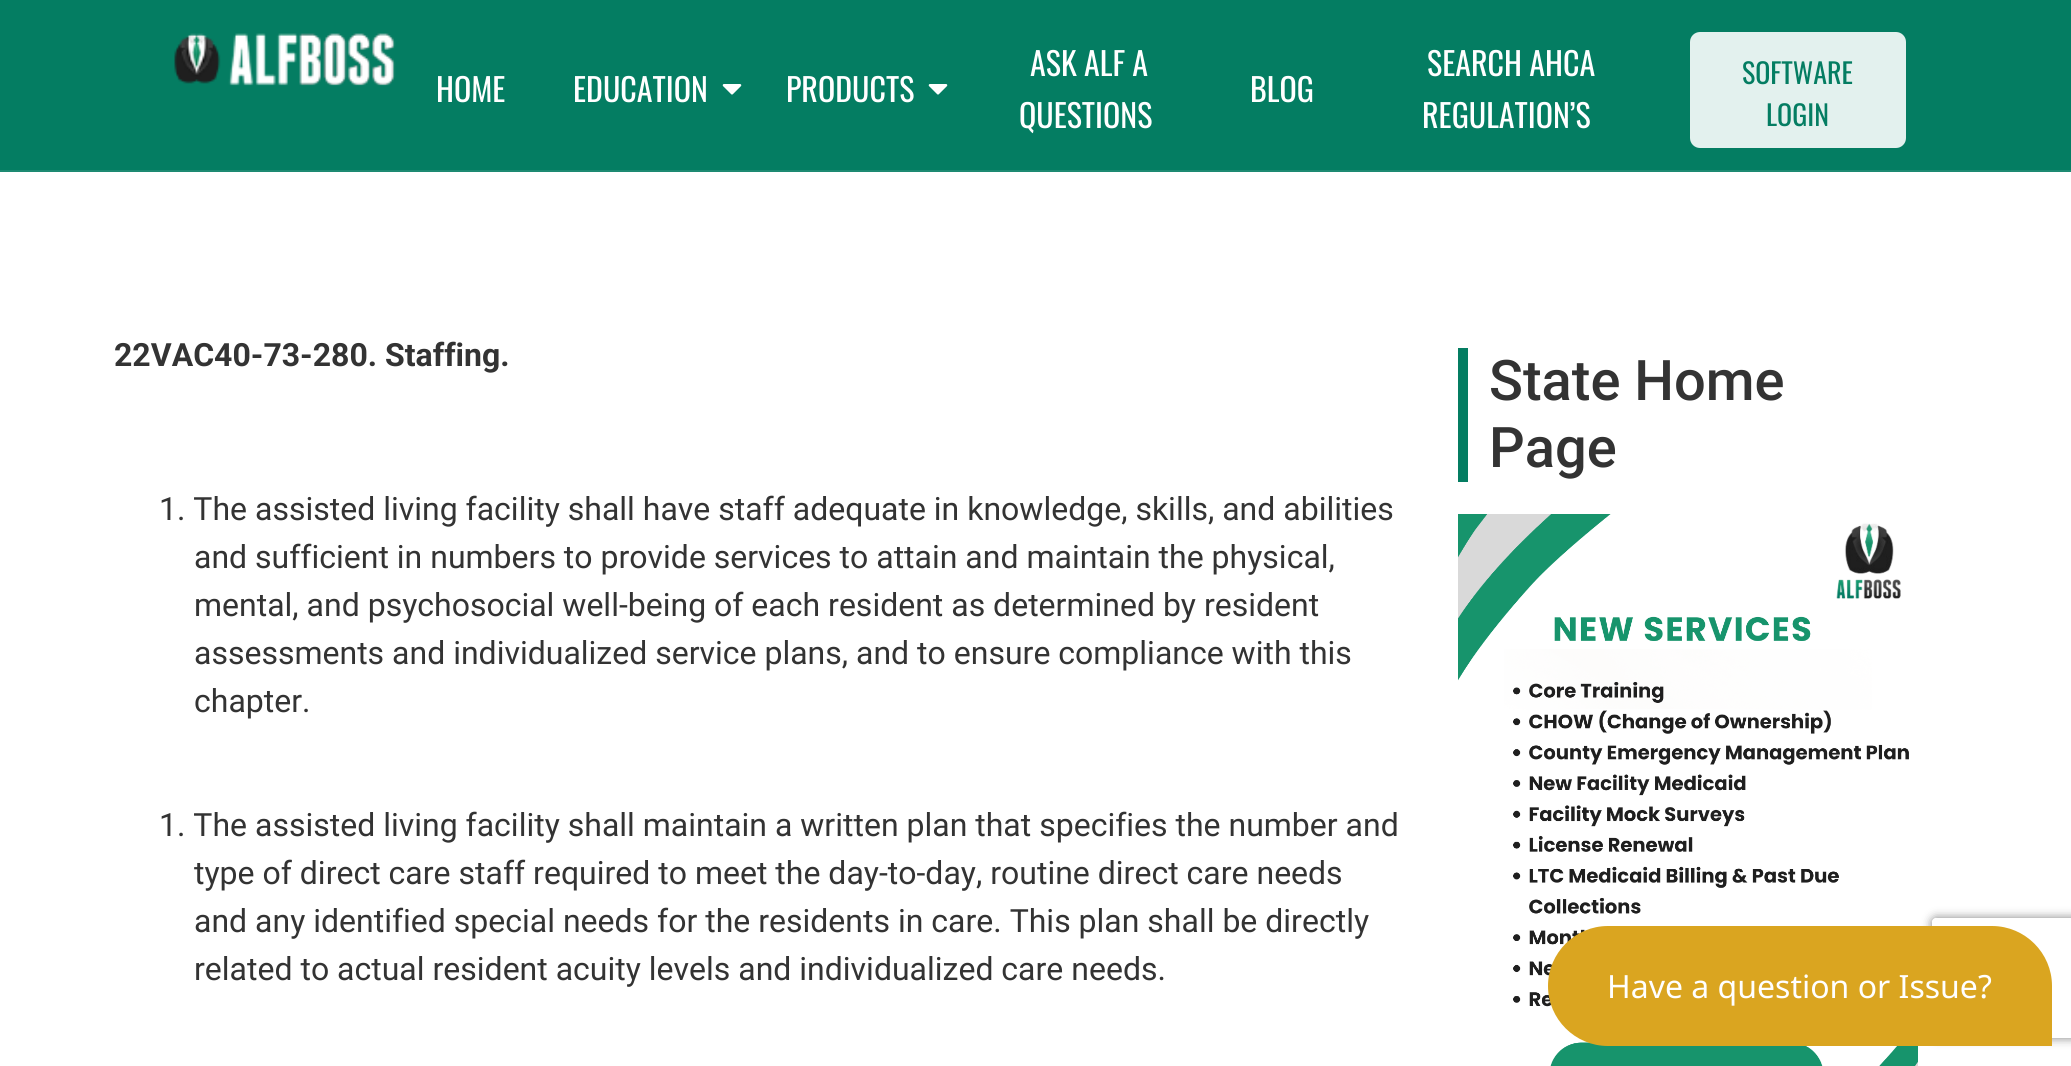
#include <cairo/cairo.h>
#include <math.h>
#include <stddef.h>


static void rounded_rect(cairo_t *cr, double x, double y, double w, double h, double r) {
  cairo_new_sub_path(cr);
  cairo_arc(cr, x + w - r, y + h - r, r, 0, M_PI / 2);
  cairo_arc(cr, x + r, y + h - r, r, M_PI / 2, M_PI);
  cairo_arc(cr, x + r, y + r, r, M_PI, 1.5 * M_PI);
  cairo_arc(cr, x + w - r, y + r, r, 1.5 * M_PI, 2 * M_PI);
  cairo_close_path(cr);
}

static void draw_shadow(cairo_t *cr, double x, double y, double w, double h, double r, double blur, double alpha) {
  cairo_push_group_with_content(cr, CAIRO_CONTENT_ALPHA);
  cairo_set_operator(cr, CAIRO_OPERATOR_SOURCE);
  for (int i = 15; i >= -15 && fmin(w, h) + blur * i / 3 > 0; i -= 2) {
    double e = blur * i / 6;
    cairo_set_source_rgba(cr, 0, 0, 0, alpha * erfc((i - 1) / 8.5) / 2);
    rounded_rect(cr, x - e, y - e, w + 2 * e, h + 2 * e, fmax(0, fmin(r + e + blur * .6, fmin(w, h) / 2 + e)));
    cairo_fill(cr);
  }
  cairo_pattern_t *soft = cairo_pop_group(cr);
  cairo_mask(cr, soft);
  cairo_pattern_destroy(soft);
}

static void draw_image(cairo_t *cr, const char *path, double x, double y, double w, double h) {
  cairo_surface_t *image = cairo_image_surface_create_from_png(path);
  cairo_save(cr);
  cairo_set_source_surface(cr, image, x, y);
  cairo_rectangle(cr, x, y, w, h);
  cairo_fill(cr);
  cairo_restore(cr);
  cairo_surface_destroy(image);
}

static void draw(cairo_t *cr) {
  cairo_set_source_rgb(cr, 1, 1, 1);
  cairo_paint(cr);
  cairo_set_source_rgb(cr, 4 / 255.0, 125 / 255.0, 98 / 255.0);
  cairo_rectangle(cr, 0, 0, 2071, 170);
  cairo_fill(cr);
  draw_image(cr, "images/1.png", 174, 33, 222, 53);
  draw_image(cr, "images/2.png", 722, 84, 20, 11);
  draw_image(cr, "images/2.png", 928, 84, 20, 11);
  cairo_set_source_rgba(cr, 1, 1, 1, 0.89);
  rounded_rect(cr, 1690, 32, 216, 116, 10);
  cairo_fill(cr);
  cairo_set_source_rgb(cr, 29 / 255.0, 138 / 255.0, 114 / 255.0);
  cairo_rectangle(cr, 0, 170, 2071, 2);
  cairo_fill(cr);
  cairo_set_source_rgb(cr, 4 / 255.0, 125 / 255.0, 98 / 255.0);
  cairo_rectangle(cr, 1458, 348, 10, 134);
  cairo_fill(cr);
  draw_image(cr, "images/3.png", 1458, 514, 460, 552);
  cairo_save(cr);
  cairo_set_fill_rule(cr, CAIRO_FILL_RULE_EVEN_ODD);
  cairo_new_path(cr);
  cairo_move_to(cr, 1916, 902);
  cairo_line_to(cr, 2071, 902);
  cairo_line_to(cr, 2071, 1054);
  cairo_line_to(cr, 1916, 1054);
  cairo_close_path(cr);
  cairo_move_to(cr, 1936, 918);
  cairo_line_to(cr, 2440, 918);
  cairo_curve_to(cr, 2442, 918, 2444, 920, 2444, 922);
  cairo_line_to(cr, 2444, 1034);
  cairo_curve_to(cr, 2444, 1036, 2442, 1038, 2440, 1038);
  cairo_line_to(cr, 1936, 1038);
  cairo_curve_to(cr, 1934, 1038, 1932, 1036, 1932, 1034);
  cairo_line_to(cr, 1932, 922);
  cairo_curve_to(cr, 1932, 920, 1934, 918, 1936, 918);
  cairo_close_path(cr);
  cairo_clip(cr);
  cairo_set_source_rgb(cr, 128 / 255.0, 128 / 255.0, 128 / 255.0);
  draw_shadow(cr, 1932, 918, 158, 120, 4, 5, 1);
  cairo_restore(cr);
  cairo_set_source_rgb(cr, 218 / 255.0, 165 / 255.0, 32 / 255.0);
  cairo_new_path(cr);
  cairo_move_to(cr, 1608, 926);
  cairo_line_to(cr, 1992, 926);
  cairo_curve_to(cr, 2025, 926, 2052, 953, 2052, 986);
  cairo_line_to(cr, 2052, 1046);
  cairo_line_to(cr, 1608, 1046);
  cairo_curve_to(cr, 1575, 1046, 1548, 1019, 1548, 986);
  cairo_curve_to(cr, 1548, 953, 1575, 926, 1608, 926);
  cairo_close_path(cr);
  cairo_fill(cr);
  cairo_select_font_face(cr, "Oswald", CAIRO_FONT_SLANT_NORMAL, CAIRO_FONT_WEIGHT_NORMAL);
  cairo_set_font_size(cr, 32);
  cairo_set_source_rgb(cr, 1, 1, 1);
  cairo_move_to(cr, 436, 102);
  cairo_show_text(cr, "HOME");
  cairo_move_to(cr, 573, 102);
  cairo_show_text(cr, "EDUCATION");
  cairo_move_to(cr, 786, 102);
  cairo_show_text(cr, "PRODUCTS");
  cairo_move_to(cr, 1030, 76);
  cairo_show_text(cr, "ASK ALF A");
  cairo_move_to(cr, 1019, 128);
  cairo_show_text(cr, "QUESTIONS");
  cairo_move_to(cr, 1250, 102);
  cairo_show_text(cr, "BLOG");
  cairo_move_to(cr, 1427, 76);
  cairo_show_text(cr, "SEARCH AHCA");
  cairo_move_to(cr, 1422, 128);
  cairo_show_text(cr, "REGULATION’S");
  cairo_set_font_size(cr, 28);
  cairo_set_source_rgb(cr, 4 / 255.0, 125 / 255.0, 98 / 255.0);
  cairo_move_to(cr, 1742, 84);
  cairo_show_text(cr, "SOFTWARE");
  cairo_move_to(cr, 1766, 126);
  cairo_show_text(cr, "LOGIN");
  cairo_select_font_face(cr, "Roboto", CAIRO_FONT_SLANT_NORMAL, CAIRO_FONT_WEIGHT_BOLD);
  cairo_set_font_size(cr, 32);
  cairo_set_source_rgb(cr, 51 / 255.0, 51 / 255.0, 51 / 255.0);
  cairo_move_to(cr, 114, 366);
  cairo_show_text(cr, "22VAC40-73-280. Staffing.");
  cairo_select_font_face(cr, "Roboto", CAIRO_FONT_SLANT_NORMAL, CAIRO_FONT_WEIGHT_NORMAL);
  cairo_move_to(cr, 159, 520);
  cairo_show_text(cr, "1. The assisted living facility shall have staff adequate in knowledge, skills, and abilities");
  cairo_move_to(cr, 194, 568);
  cairo_show_text(cr, "and sufficient in numbers to provide services to attain and maintain the physical,");
  cairo_move_to(cr, 194, 616);
  cairo_show_text(cr, "mental, and psychosocial well-being of each resident as determined by resident");
  cairo_move_to(cr, 194, 664);
  cairo_show_text(cr, "assessments and individualized service plans, and to ensure compliance with this");
  cairo_move_to(cr, 194, 712);
  cairo_show_text(cr, "chapter.");
  cairo_move_to(cr, 159, 836);
  cairo_show_text(cr, "1. The assisted living facility shall maintain a written plan that specifies the number and");
  cairo_move_to(cr, 194, 884);
  cairo_show_text(cr, "type of direct care staff required to meet the day-to-day, routine direct care needs");
  cairo_move_to(cr, 194, 932);
  cairo_show_text(cr, "and any identified special needs for the residents in care. This plan shall be directly");
  cairo_move_to(cr, 194, 980);
  cairo_show_text(cr, "related to actual resident acuity levels and individualized care needs.");
  cairo_select_font_face(cr, "Roboto Medium", CAIRO_FONT_SLANT_NORMAL, CAIRO_FONT_WEIGHT_NORMAL);
  cairo_set_font_size(cr, 56);
  cairo_move_to(cr, 1489, 400);
  cairo_show_text(cr, "State Home");
  cairo_move_to(cr, 1489, 467);
  cairo_show_text(cr, "Page");
  cairo_select_font_face(cr, "Noto Sans", CAIRO_FONT_SLANT_NORMAL, CAIRO_FONT_WEIGHT_NORMAL);
  cairo_set_font_size(cr, 32);
  cairo_set_source_rgb(cr, 1, 1, 1);
  cairo_move_to(cr, 1607, 998);
  cairo_show_text(cr, "Have a question or Issue?");
}

int main(void) {
  cairo_surface_t *surface = cairo_image_surface_create(CAIRO_FORMAT_RGB24, 2071, 1066);
  cairo_t *cr = cairo_create(surface);
  cairo_font_options_t *options = cairo_font_options_create();
  cairo_font_options_set_hint_metrics(options, CAIRO_HINT_METRICS_OFF);
  cairo_font_options_set_hint_style(options, CAIRO_HINT_STYLE_NONE);
  cairo_set_font_options(cr, options);
  cairo_set_miter_limit(cr, 4);
  draw(cr);
  cairo_surface_write_to_png(surface, "out.png");
  cairo_font_options_destroy(options);
  cairo_destroy(cr);
  cairo_surface_destroy(surface);
  return 0;
}
